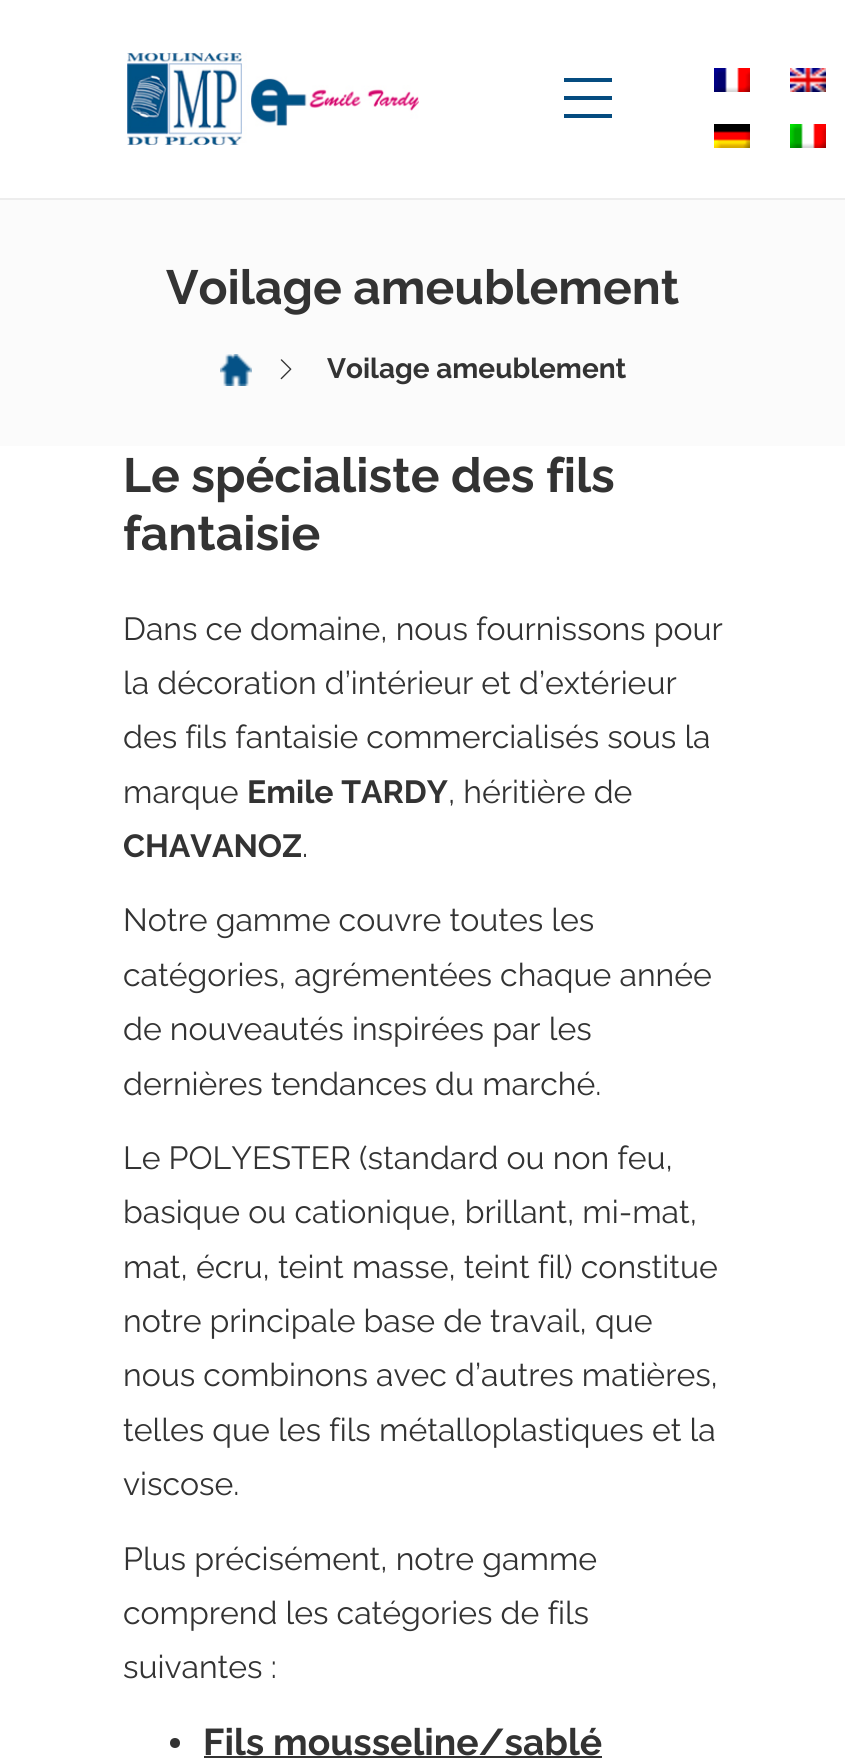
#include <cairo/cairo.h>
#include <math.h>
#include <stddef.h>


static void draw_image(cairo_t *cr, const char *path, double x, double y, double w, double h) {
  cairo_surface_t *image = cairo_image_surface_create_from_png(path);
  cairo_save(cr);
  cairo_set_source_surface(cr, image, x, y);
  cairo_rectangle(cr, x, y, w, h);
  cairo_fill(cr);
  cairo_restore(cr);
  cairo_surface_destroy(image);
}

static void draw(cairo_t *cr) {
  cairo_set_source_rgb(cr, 1, 1, 1);
  cairo_paint(cr);
  cairo_set_source_rgb(cr, 237 / 255.0, 237 / 255.0, 237 / 255.0);
  cairo_rectangle(cr, 0, 198, 845, 2);
  cairo_fill(cr);
  draw_image(cr, "images/1.png", 127, 52, 292, 93);
  cairo_set_source_rgb(cr, 5 / 255.0, 76 / 255.0, 128 / 255.0);
  cairo_rectangle(cr, 564, 96, 48, 4);
  cairo_fill(cr);
  cairo_rectangle(cr, 564, 78, 48, 4);
  cairo_fill(cr);
  cairo_rectangle(cr, 564, 114, 48, 4);
  cairo_fill(cr);
  draw_image(cr, "images/2.png", 714, 68, 36, 24);
  draw_image(cr, "images/3.png", 790, 68, 36, 24);
  draw_image(cr, "images/4.png", 714, 124, 36, 24);
  draw_image(cr, "images/5.png", 790, 124, 36, 24);
  cairo_set_source_rgb(cr, 251 / 255.0, 251 / 255.0, 251 / 255.0);
  cairo_rectangle(cr, 0, 200, 845, 246);
  cairo_fill(cr);
  draw_image(cr, "images/6.png", 220, 354, 32, 32);
  draw_image(cr, "images/7.png", 280, 359, 12, 21);
  cairo_set_source_rgb(cr, 51 / 255.0, 51 / 255.0, 51 / 255.0);
  cairo_arc(cr, 175, 1743, 5, 0, 2 * M_PI);
  cairo_fill(cr);
  cairo_rectangle(cr, 204, 1756, 398, 2);
  cairo_fill(cr);
  cairo_select_font_face(cr, "Raleway", CAIRO_FONT_SLANT_NORMAL, CAIRO_FONT_WEIGHT_BOLD);
  cairo_set_font_size(cr, 48);
  cairo_move_to(cr, 166, 304);
  cairo_show_text(cr, "Voilage ameublement");
  cairo_set_font_size(cr, 28);
  cairo_move_to(cr, 327, 378);
  cairo_show_text(cr, "Voilage ameublement");
  cairo_set_font_size(cr, 48);
  cairo_move_to(cr, 123, 492);
  cairo_show_text(cr, "Le spécialiste des fils");
  cairo_move_to(cr, 123, 550);
  cairo_show_text(cr, "fantaisie");
  cairo_select_font_face(cr, "Raleway", CAIRO_FONT_SLANT_NORMAL, CAIRO_FONT_WEIGHT_NORMAL);
  cairo_set_font_size(cr, 32);
  cairo_move_to(cr, 123, 640);
  cairo_show_text(cr, "Dans ce domaine, nous fournissons pour");
  cairo_move_to(cr, 123, 694);
  cairo_show_text(cr, "la décoration d’intérieur et d’extérieur");
  cairo_move_to(cr, 123, 748);
  cairo_show_text(cr, "des fils fantaisie commercialisés sous la");
  cairo_move_to(cr, 123, 803);
  cairo_show_text(cr, "marque");
  cairo_select_font_face(cr, "Raleway", CAIRO_FONT_SLANT_NORMAL, CAIRO_FONT_WEIGHT_BOLD);
  cairo_move_to(cr, 247, 803);
  cairo_show_text(cr, "Emile TARDY");
  cairo_select_font_face(cr, "Raleway", CAIRO_FONT_SLANT_NORMAL, CAIRO_FONT_WEIGHT_NORMAL);
  cairo_move_to(cr, 448, 803);
  cairo_show_text(cr, ", héritière de");
  cairo_select_font_face(cr, "Raleway", CAIRO_FONT_SLANT_NORMAL, CAIRO_FONT_WEIGHT_BOLD);
  cairo_move_to(cr, 123, 857);
  cairo_show_text(cr, "CHAVANOZ");
  cairo_select_font_face(cr, "Raleway", CAIRO_FONT_SLANT_NORMAL, CAIRO_FONT_WEIGHT_NORMAL);
  cairo_move_to(cr, 302, 857);
  cairo_show_text(cr, ".");
  cairo_move_to(cr, 123, 931);
  cairo_show_text(cr, "Notre gamme couvre toutes les");
  cairo_move_to(cr, 123, 986);
  cairo_show_text(cr, "catégories, agrémentées chaque année");
  cairo_move_to(cr, 123, 1040);
  cairo_show_text(cr, "de nouveautés inspirées par les");
  cairo_move_to(cr, 123, 1095);
  cairo_show_text(cr, "dernières tendances du marché.");
  cairo_move_to(cr, 123, 1169);
  cairo_show_text(cr, "Le POLYESTER (standard ou non feu,");
  cairo_move_to(cr, 123, 1223);
  cairo_show_text(cr, "basique ou cationique, brillant, mi-mat,");
  cairo_move_to(cr, 123, 1278);
  cairo_show_text(cr, "mat, écru, teint masse, teint fil) constitue");
  cairo_move_to(cr, 123, 1332);
  cairo_show_text(cr, "notre principale base de travail, que");
  cairo_move_to(cr, 123, 1386);
  cairo_show_text(cr, "nous combinons avec d’autres matières,");
  cairo_move_to(cr, 123, 1441);
  cairo_show_text(cr, "telles que les fils métalloplastiques et la");
  cairo_move_to(cr, 123, 1495);
  cairo_show_text(cr, "viscose.");
  cairo_move_to(cr, 123, 1570);
  cairo_show_text(cr, "Plus précisément, notre gamme");
  cairo_move_to(cr, 123, 1624);
  cairo_show_text(cr, "comprend les catégories de fils");
  cairo_move_to(cr, 123, 1678);
  cairo_show_text(cr, "suivantes :");
  cairo_select_font_face(cr, "Raleway", CAIRO_FONT_SLANT_NORMAL, CAIRO_FONT_WEIGHT_BOLD);
  cairo_set_font_size(cr, 37.25);
  cairo_move_to(cr, 203, 1755);
  cairo_show_text(cr, "Fils mousseline/sablé");
}

int main(void) {
  cairo_surface_t *surface = cairo_image_surface_create(CAIRO_FORMAT_RGB24, 845, 1762);
  cairo_t *cr = cairo_create(surface);
  cairo_font_options_t *options = cairo_font_options_create();
  cairo_font_options_set_hint_metrics(options, CAIRO_HINT_METRICS_OFF);
  cairo_font_options_set_hint_style(options, CAIRO_HINT_STYLE_NONE);
  cairo_set_font_options(cr, options);
  cairo_set_miter_limit(cr, 4);
  draw(cr);
  cairo_surface_write_to_png(surface, "out.png");
  cairo_font_options_destroy(options);
  cairo_destroy(cr);
  cairo_surface_destroy(surface);
  return 0;
}
